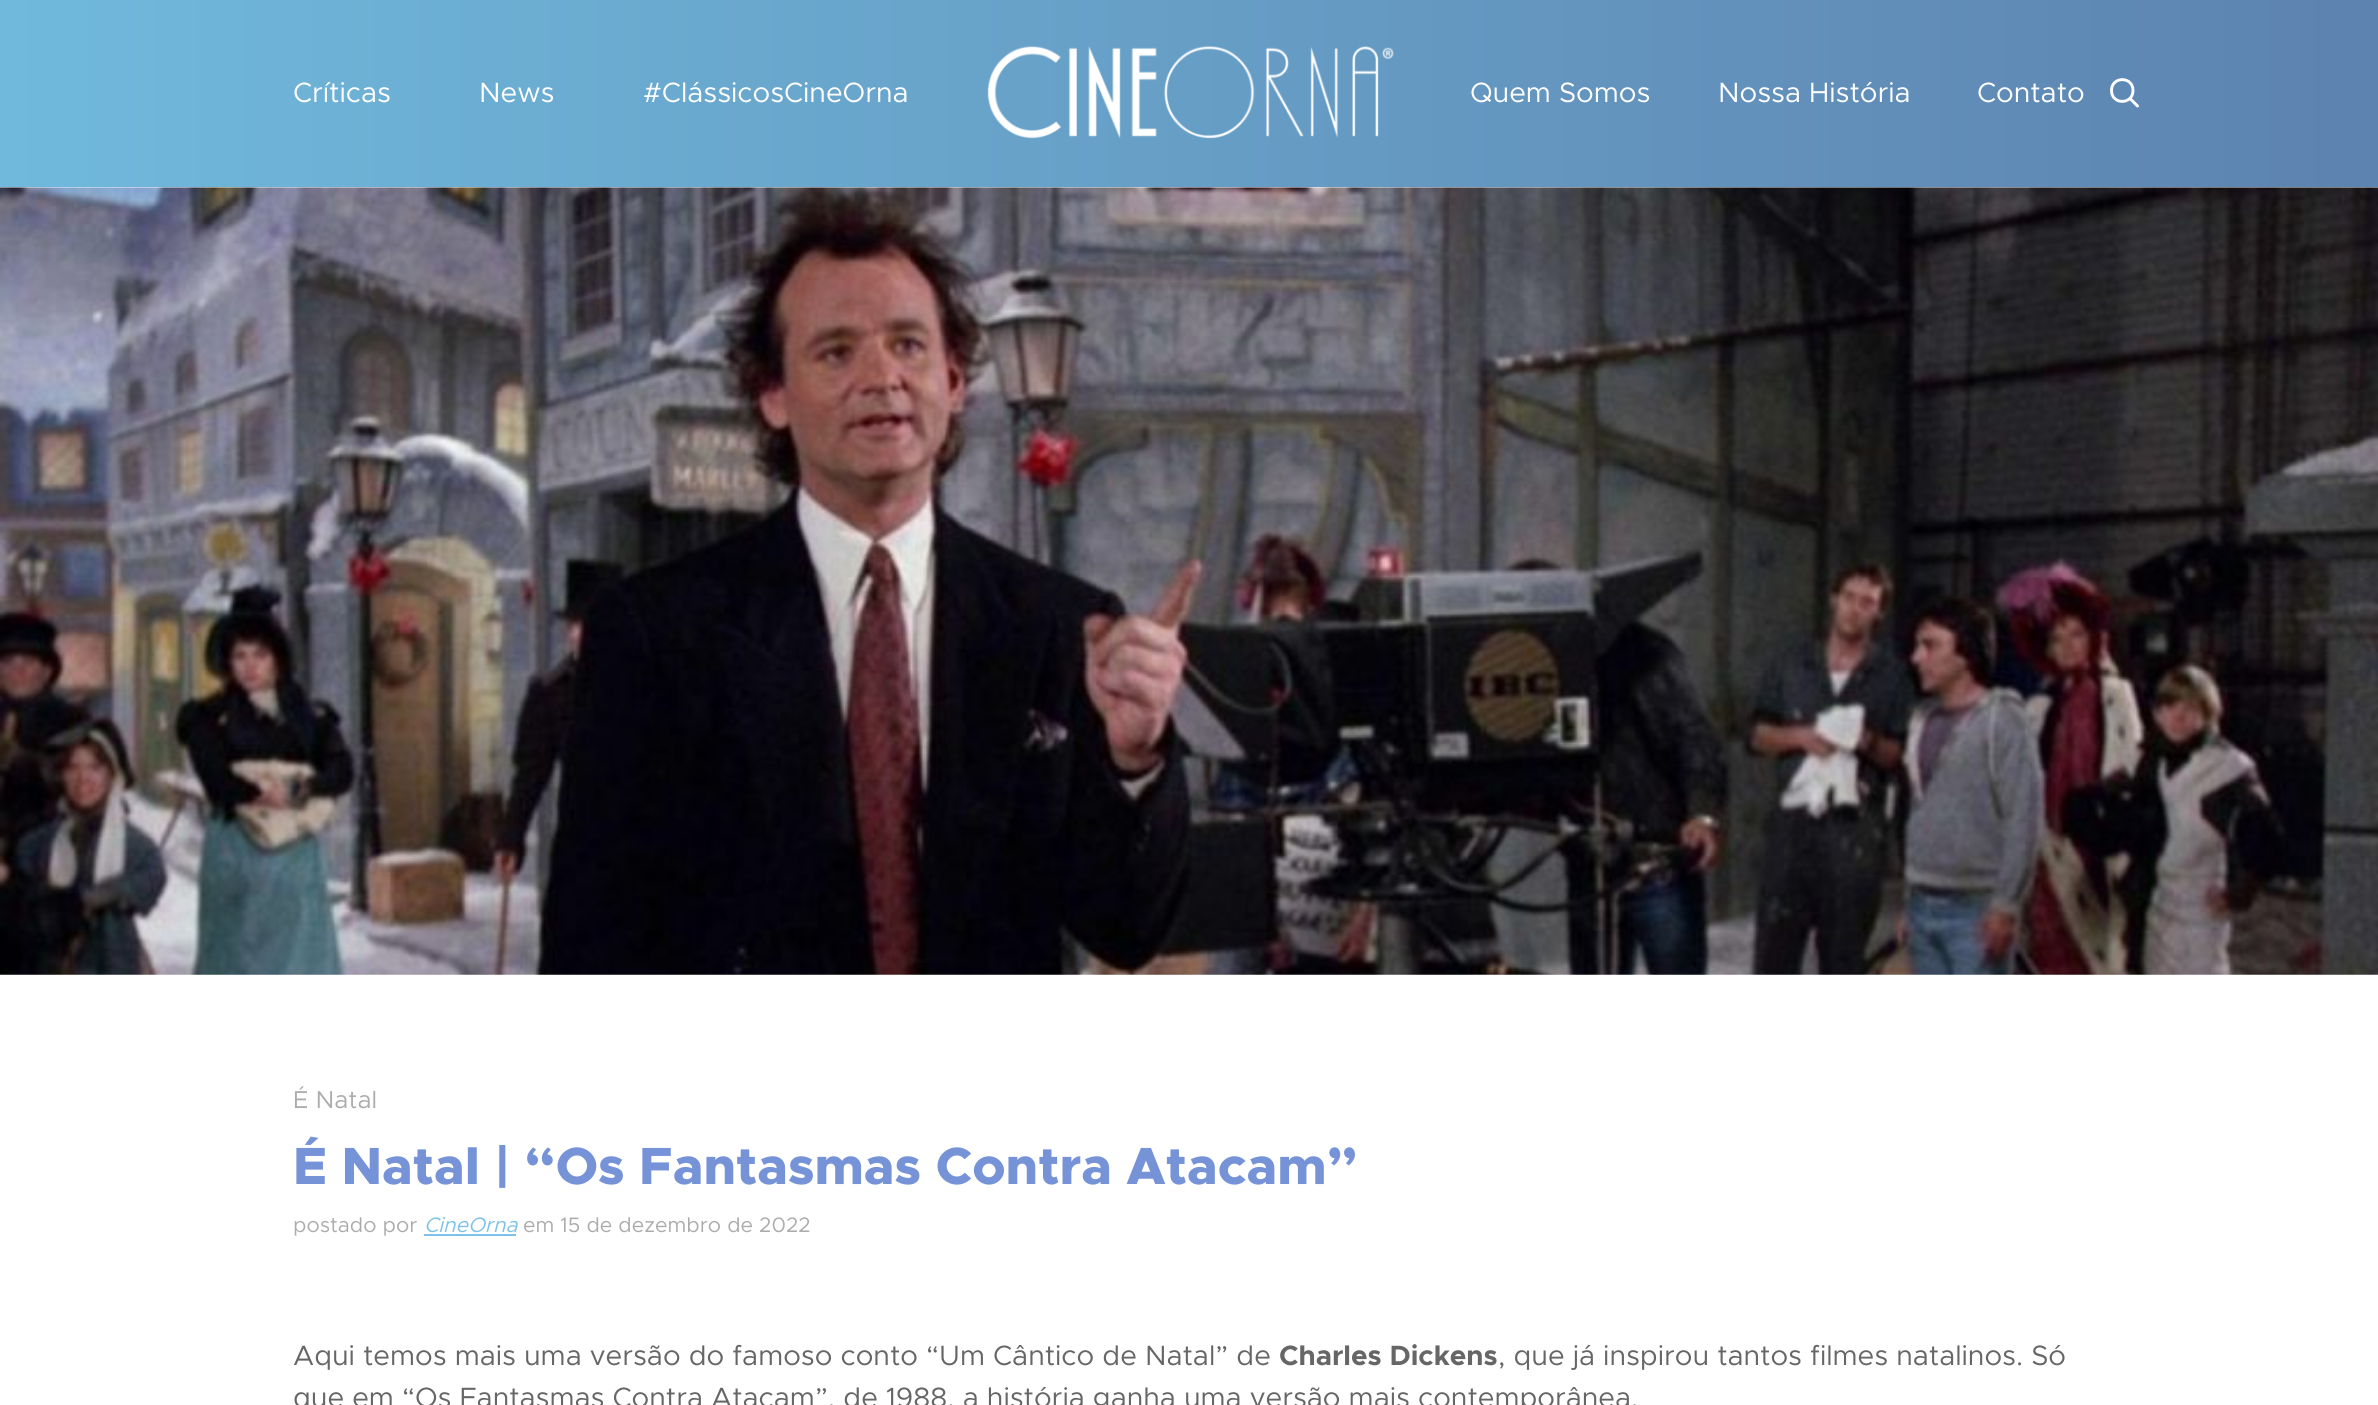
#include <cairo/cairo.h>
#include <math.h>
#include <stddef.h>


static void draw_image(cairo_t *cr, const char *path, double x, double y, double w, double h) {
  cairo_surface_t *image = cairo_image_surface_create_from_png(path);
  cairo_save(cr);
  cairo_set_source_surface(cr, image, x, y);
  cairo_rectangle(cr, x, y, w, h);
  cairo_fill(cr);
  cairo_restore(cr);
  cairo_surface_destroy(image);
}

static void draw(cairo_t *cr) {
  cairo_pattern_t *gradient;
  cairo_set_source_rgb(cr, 1, 1, 1);
  cairo_paint(cr);
  gradient = cairo_pattern_create_linear(2378, 94, 0, 94);
  cairo_pattern_add_color_stop_rgba(gradient, 0, 93 / 255.0, 131 / 255.0, 176 / 255.0, 1);
  cairo_pattern_add_color_stop_rgba(gradient, 1, 112 / 255.0, 185 / 255.0, 220 / 255.0, 1);
  cairo_set_source(cr, gradient);
  cairo_pattern_destroy(gradient);
  cairo_rectangle(cr, 0, 0, 2378, 187);
  cairo_fill(cr);
  draw_image(cr, "images/1.png", 987, 46, 407, 93);
  cairo_new_path(cr);
  cairo_move_to(cr, 2130, 98.5);
  cairo_line_to(cr, 2137.5, 106);
  cairo_move_to(cr, 2133, 90.5);
  cairo_curve_to(cr, 2133, 105, 2111.5, 105, 2111.5, 90.5);
  cairo_curve_to(cr, 2111.5, 76, 2133, 76, 2133, 90.5);
  cairo_close_path(cr);
  cairo_set_source_rgb(cr, 1, 1, 1);
  cairo_set_line_width(cr, 2.9);
  cairo_set_line_cap(cr, CAIRO_LINE_CAP_ROUND);
  cairo_set_line_join(cr, CAIRO_LINE_JOIN_ROUND);
  cairo_stroke(cr);
  draw_image(cr, "images/2.png", 0, 187, 2378, 788);
  cairo_set_source_rgb(cr, 126 / 255.0, 193 / 255.0, 233 / 255.0);
  cairo_rectangle(cr, 424, 1234, 92, 2);
  cairo_fill(cr);
  cairo_select_font_face(cr, "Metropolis", CAIRO_FONT_SLANT_NORMAL, CAIRO_FONT_WEIGHT_NORMAL);
  cairo_set_font_size(cr, 28);
  cairo_set_source_rgb(cr, 1, 1, 1);
  cairo_move_to(cr, 293, 102);
  cairo_show_text(cr, "Críticas");
  cairo_move_to(cr, 479, 102);
  cairo_show_text(cr, "News");
  cairo_move_to(cr, 643, 102);
  cairo_show_text(cr, "#ClássicosCineOrna");
  cairo_move_to(cr, 1470, 102);
  cairo_show_text(cr, "Quem Somos");
  cairo_move_to(cr, 1718, 102);
  cairo_show_text(cr, "Nossa História");
  cairo_move_to(cr, 1977, 102);
  cairo_show_text(cr, "Contato");
  cairo_set_font_size(cr, 24.5);
  cairo_set_source_rgb(cr, 172 / 255.0, 172 / 255.0, 172 / 255.0);
  cairo_move_to(cr, 293, 1108);
  cairo_show_text(cr, "É Natal");
  cairo_select_font_face(cr, "Metropolis ExtraBold", CAIRO_FONT_SLANT_NORMAL, CAIRO_FONT_WEIGHT_NORMAL);
  cairo_set_font_size(cr, 52.5);
  cairo_set_source_rgb(cr, 119 / 255.0, 147 / 255.0, 216 / 255.0);
  cairo_move_to(cr, 293, 1184);
  cairo_show_text(cr, "É Natal | “Os Fantasmas Contra Atacam”");
  cairo_select_font_face(cr, "Metropolis", CAIRO_FONT_SLANT_NORMAL, CAIRO_FONT_WEIGHT_NORMAL);
  cairo_set_font_size(cr, 21);
  cairo_set_source_rgb(cr, 172 / 255.0, 172 / 255.0, 172 / 255.0);
  cairo_move_to(cr, 293, 1232);
  cairo_show_text(cr, "postado por");
  cairo_select_font_face(cr, "Metropolis", CAIRO_FONT_SLANT_ITALIC, CAIRO_FONT_WEIGHT_NORMAL);
  cairo_set_source_rgb(cr, 126 / 255.0, 193 / 255.0, 233 / 255.0);
  cairo_move_to(cr, 424, 1232);
  cairo_show_text(cr, "CineOrna");
  cairo_select_font_face(cr, "Metropolis", CAIRO_FONT_SLANT_NORMAL, CAIRO_FONT_WEIGHT_NORMAL);
  cairo_set_source_rgb(cr, 172 / 255.0, 172 / 255.0, 172 / 255.0);
  cairo_move_to(cr, 523, 1232);
  cairo_show_text(cr, "em 15 de dezembro de 2022");
  cairo_set_font_size(cr, 28);
  cairo_set_source_rgb(cr, 102 / 255.0, 102 / 255.0, 102 / 255.0);
  cairo_move_to(cr, 293, 1365);
  cairo_show_text(cr, "Aqui temos mais uma versão do famoso conto “Um Cântico de Natal” de");
  cairo_select_font_face(cr, "Metropolis", CAIRO_FONT_SLANT_NORMAL, CAIRO_FONT_WEIGHT_BOLD);
  cairo_move_to(cr, 1279, 1365);
  cairo_show_text(cr, "Charles Dickens");
  cairo_select_font_face(cr, "Metropolis", CAIRO_FONT_SLANT_NORMAL, CAIRO_FONT_WEIGHT_NORMAL);
  cairo_move_to(cr, 1498, 1365);
  cairo_show_text(cr, ", que já inspirou tantos filmes natalinos. Só");
  cairo_move_to(cr, 293, 1407);
  cairo_show_text(cr, "que em “Os Fantasmas Contra Atacam”, de 1988, a história ganha uma versão mais contemporânea.");
}

int main(void) {
  cairo_surface_t *surface = cairo_image_surface_create(CAIRO_FORMAT_RGB24, 2378, 1405);
  cairo_t *cr = cairo_create(surface);
  cairo_font_options_t *options = cairo_font_options_create();
  cairo_font_options_set_hint_metrics(options, CAIRO_HINT_METRICS_OFF);
  cairo_font_options_set_hint_style(options, CAIRO_HINT_STYLE_NONE);
  cairo_set_font_options(cr, options);
  cairo_set_miter_limit(cr, 4);
  draw(cr);
  cairo_surface_write_to_png(surface, "out.png");
  cairo_font_options_destroy(options);
  cairo_destroy(cr);
  cairo_surface_destroy(surface);
  return 0;
}
